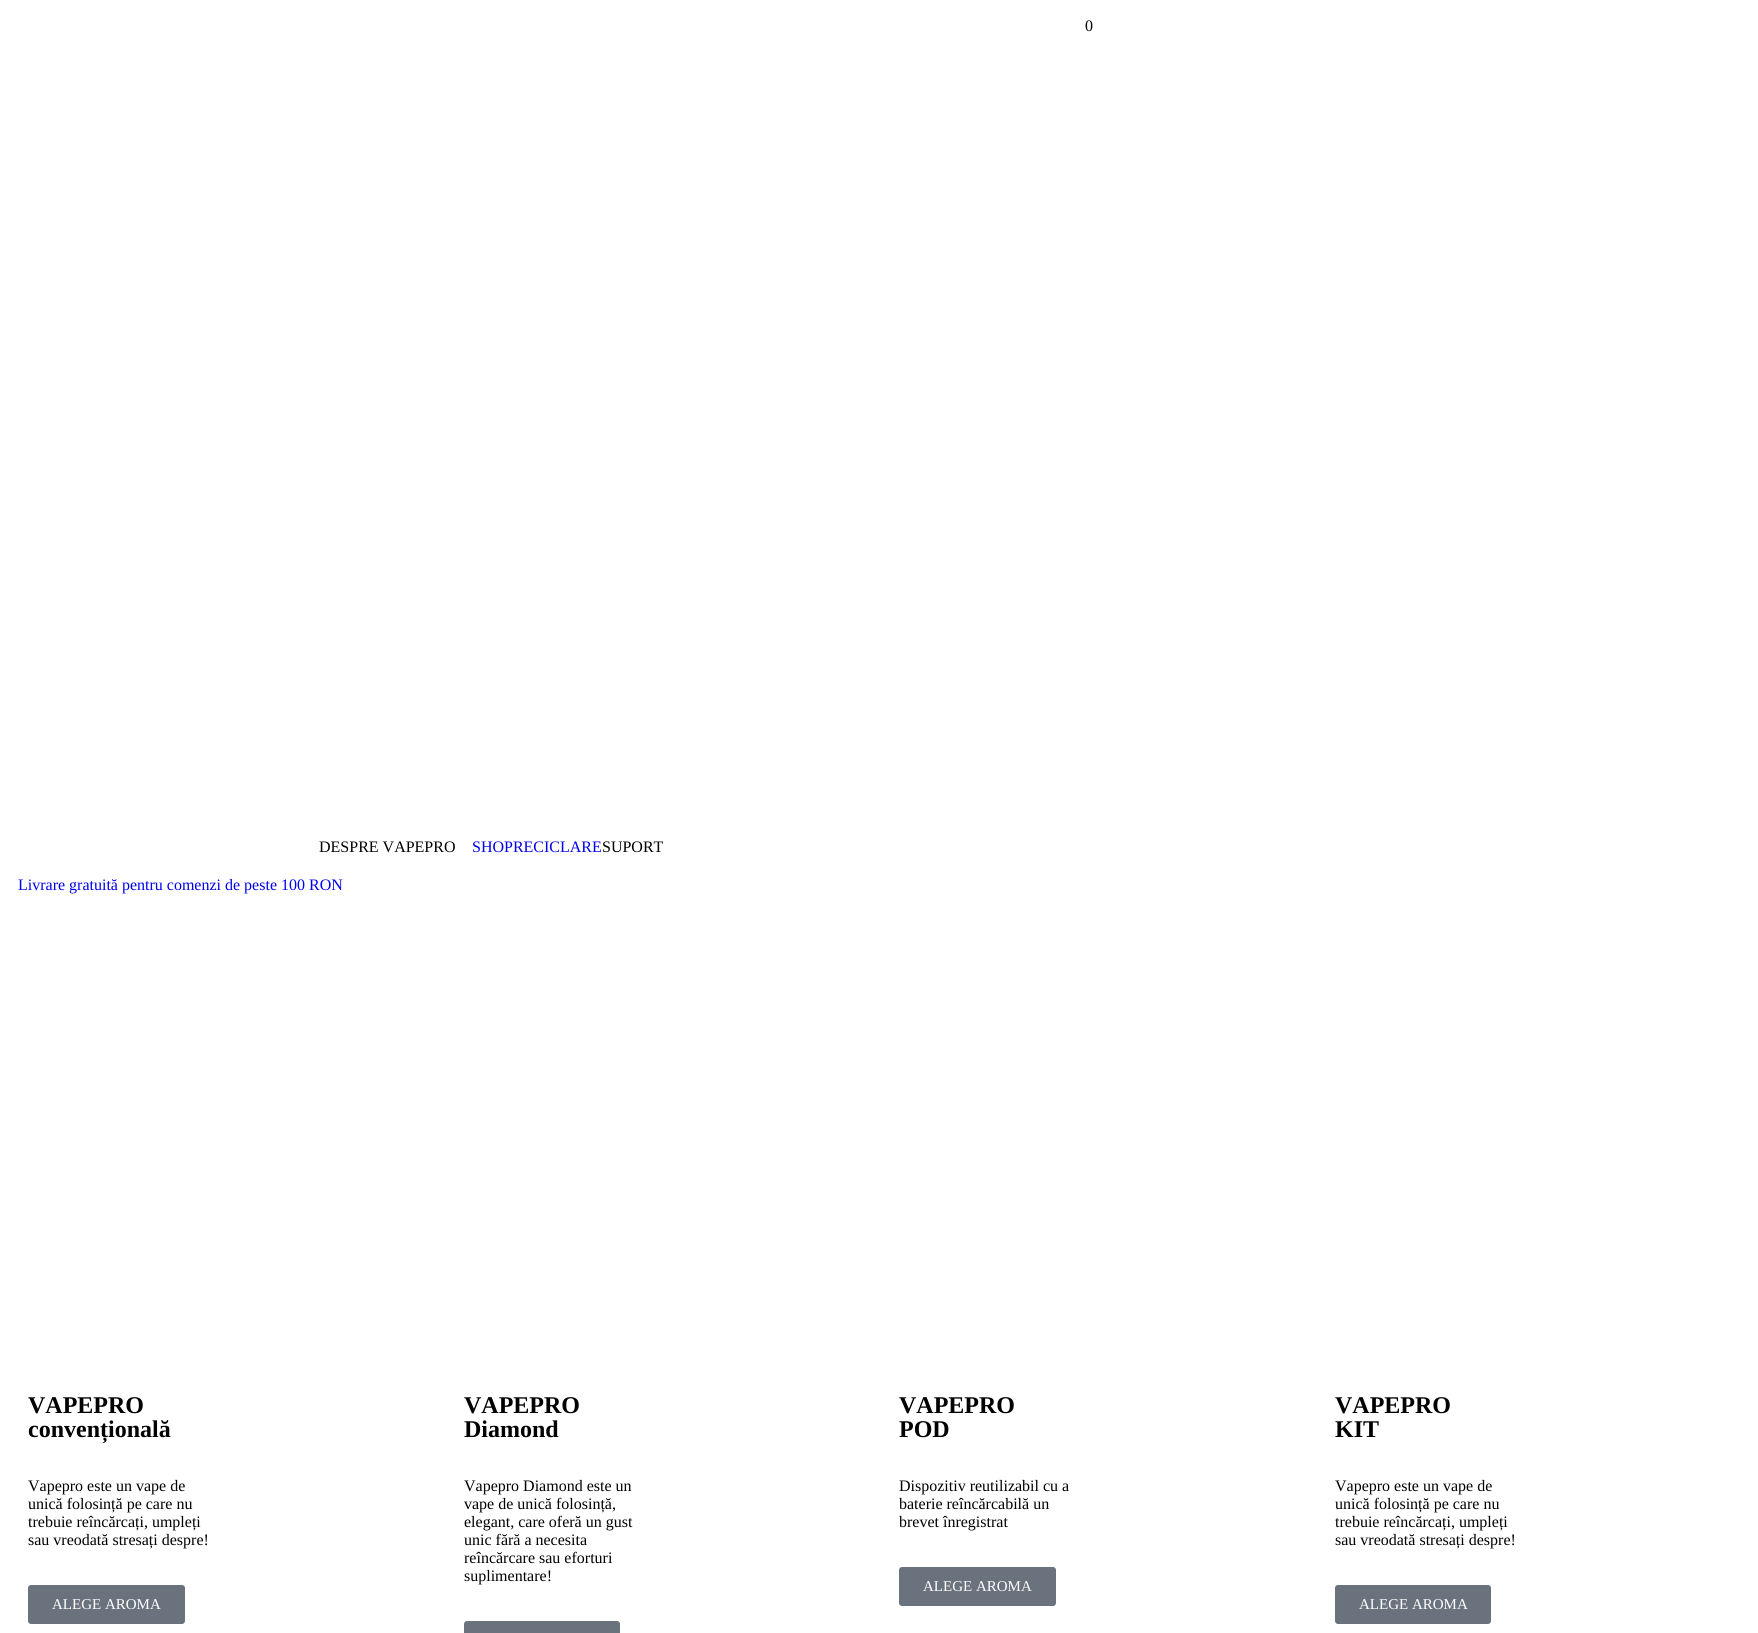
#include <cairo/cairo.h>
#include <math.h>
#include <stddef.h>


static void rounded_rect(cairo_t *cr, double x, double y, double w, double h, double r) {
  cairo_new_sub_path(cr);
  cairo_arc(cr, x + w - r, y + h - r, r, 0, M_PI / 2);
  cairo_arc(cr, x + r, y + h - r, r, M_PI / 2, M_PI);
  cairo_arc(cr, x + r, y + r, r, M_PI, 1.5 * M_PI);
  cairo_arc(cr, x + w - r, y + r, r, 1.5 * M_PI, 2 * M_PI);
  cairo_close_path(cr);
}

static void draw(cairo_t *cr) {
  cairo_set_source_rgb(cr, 1, 1, 1);
  cairo_paint(cr);
  cairo_set_source_rgb(cr, 105 / 255.0, 114 / 255.0, 125 / 255.0);
  rounded_rect(cr, 28, 1585, 157, 39, 3);
  cairo_fill(cr);
  rounded_rect(cr, 464, 1621, 156, 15, 3);
  cairo_fill(cr);
  rounded_rect(cr, 899, 1567, 157, 39, 3);
  cairo_fill(cr);
  rounded_rect(cr, 1335, 1585, 156, 39, 3);
  cairo_fill(cr);
  cairo_select_font_face(cr, "Liberation Serif", CAIRO_FONT_SLANT_NORMAL, CAIRO_FONT_WEIGHT_NORMAL);
  cairo_set_font_size(cr, 16);
  cairo_set_source_rgb(cr, 0, 0, 0);
  cairo_move_to(cr, 1085, 31);
  cairo_show_text(cr, "0");
  cairo_move_to(cr, 319, 852);
  cairo_show_text(cr, "DESPRE VAPEPRO");
  cairo_set_source_rgb(cr, 0, 0, 238 / 255.0);
  cairo_move_to(cr, 472, 852);
  cairo_show_text(cr, "SHOPRECICLARE");
  cairo_set_source_rgb(cr, 0, 0, 0);
  cairo_move_to(cr, 602, 852);
  cairo_show_text(cr, "SUPORT");
  cairo_set_source_rgb(cr, 0, 0, 238 / 255.0);
  cairo_move_to(cr, 18, 890);
  cairo_show_text(cr, "Livrare gratuită pentru comenzi de peste 100 RON");
  cairo_select_font_face(cr, "Liberation Serif", CAIRO_FONT_SLANT_NORMAL, CAIRO_FONT_WEIGHT_BOLD);
  cairo_set_font_size(cr, 24);
  cairo_set_source_rgb(cr, 0, 0, 0);
  cairo_move_to(cr, 28, 1413);
  cairo_show_text(cr, "VAPEPRO");
  cairo_move_to(cr, 28, 1437);
  cairo_show_text(cr, "convențională");
  cairo_select_font_face(cr, "Liberation Serif", CAIRO_FONT_SLANT_NORMAL, CAIRO_FONT_WEIGHT_NORMAL);
  cairo_set_font_size(cr, 16);
  cairo_move_to(cr, 28, 1491);
  cairo_show_text(cr, "Vapepro este un vape de");
  cairo_move_to(cr, 28, 1509);
  cairo_show_text(cr, "unică folosință pe care nu");
  cairo_move_to(cr, 28, 1527);
  cairo_show_text(cr, "trebuie reîncărcați, umpleți");
  cairo_move_to(cr, 28, 1545);
  cairo_show_text(cr, "sau vreodată stresați despre!");
  cairo_set_font_size(cr, 15);
  cairo_set_source_rgb(cr, 1, 1, 1);
  cairo_move_to(cr, 52, 1609);
  cairo_show_text(cr, "ALEGE AROMA");
  cairo_select_font_face(cr, "Liberation Serif", CAIRO_FONT_SLANT_NORMAL, CAIRO_FONT_WEIGHT_BOLD);
  cairo_set_font_size(cr, 24);
  cairo_set_source_rgb(cr, 0, 0, 0);
  cairo_move_to(cr, 464, 1413);
  cairo_show_text(cr, "VAPEPRO");
  cairo_move_to(cr, 464, 1437);
  cairo_show_text(cr, "Diamond");
  cairo_select_font_face(cr, "Liberation Serif", CAIRO_FONT_SLANT_NORMAL, CAIRO_FONT_WEIGHT_NORMAL);
  cairo_set_font_size(cr, 16);
  cairo_move_to(cr, 464, 1491);
  cairo_show_text(cr, "Vapepro Diamond este un");
  cairo_move_to(cr, 464, 1509);
  cairo_show_text(cr, "vape de unică folosință,");
  cairo_move_to(cr, 464, 1527);
  cairo_show_text(cr, "elegant, care oferă un gust");
  cairo_move_to(cr, 464, 1545);
  cairo_show_text(cr, "unic fără a necesita");
  cairo_move_to(cr, 464, 1563);
  cairo_show_text(cr, "reîncărcare sau eforturi");
  cairo_move_to(cr, 464, 1581);
  cairo_show_text(cr, "suplimentare!");
  cairo_select_font_face(cr, "Liberation Serif", CAIRO_FONT_SLANT_NORMAL, CAIRO_FONT_WEIGHT_BOLD);
  cairo_set_font_size(cr, 24);
  cairo_move_to(cr, 899, 1413);
  cairo_show_text(cr, "VAPEPRO");
  cairo_move_to(cr, 899, 1437);
  cairo_show_text(cr, "POD");
  cairo_select_font_face(cr, "Liberation Serif", CAIRO_FONT_SLANT_NORMAL, CAIRO_FONT_WEIGHT_NORMAL);
  cairo_set_font_size(cr, 16);
  cairo_move_to(cr, 899, 1491);
  cairo_show_text(cr, "Dispozitiv reutilizabil cu a");
  cairo_move_to(cr, 899, 1509);
  cairo_show_text(cr, "baterie reîncărcabilă un");
  cairo_move_to(cr, 899, 1527);
  cairo_show_text(cr, "brevet înregistrat");
  cairo_set_font_size(cr, 15);
  cairo_set_source_rgb(cr, 1, 1, 1);
  cairo_move_to(cr, 923, 1591);
  cairo_show_text(cr, "ALEGE AROMA");
  cairo_select_font_face(cr, "Liberation Serif", CAIRO_FONT_SLANT_NORMAL, CAIRO_FONT_WEIGHT_BOLD);
  cairo_set_font_size(cr, 24);
  cairo_set_source_rgb(cr, 0, 0, 0);
  cairo_move_to(cr, 1335, 1413);
  cairo_show_text(cr, "VAPEPRO");
  cairo_move_to(cr, 1335, 1437);
  cairo_show_text(cr, "KIT");
  cairo_select_font_face(cr, "Liberation Serif", CAIRO_FONT_SLANT_NORMAL, CAIRO_FONT_WEIGHT_NORMAL);
  cairo_set_font_size(cr, 16);
  cairo_move_to(cr, 1335, 1491);
  cairo_show_text(cr, "Vapepro este un vape de");
  cairo_move_to(cr, 1335, 1509);
  cairo_show_text(cr, "unică folosință pe care nu");
  cairo_move_to(cr, 1335, 1527);
  cairo_show_text(cr, "trebuie reîncărcați, umpleți");
  cairo_move_to(cr, 1335, 1545);
  cairo_show_text(cr, "sau vreodată stresați despre!");
  cairo_set_font_size(cr, 15);
  cairo_set_source_rgb(cr, 1, 1, 1);
  cairo_move_to(cr, 1359, 1609);
  cairo_show_text(cr, "ALEGE AROMA");
}

int main(void) {
  cairo_surface_t *surface = cairo_image_surface_create(CAIRO_FORMAT_RGB24, 1758, 1633);
  cairo_t *cr = cairo_create(surface);
  cairo_font_options_t *options = cairo_font_options_create();
  cairo_font_options_set_hint_metrics(options, CAIRO_HINT_METRICS_OFF);
  cairo_font_options_set_hint_style(options, CAIRO_HINT_STYLE_NONE);
  cairo_set_font_options(cr, options);
  cairo_set_miter_limit(cr, 4);
  draw(cr);
  cairo_surface_write_to_png(surface, "out.png");
  cairo_font_options_destroy(options);
  cairo_destroy(cr);
  cairo_surface_destroy(surface);
  return 0;
}
